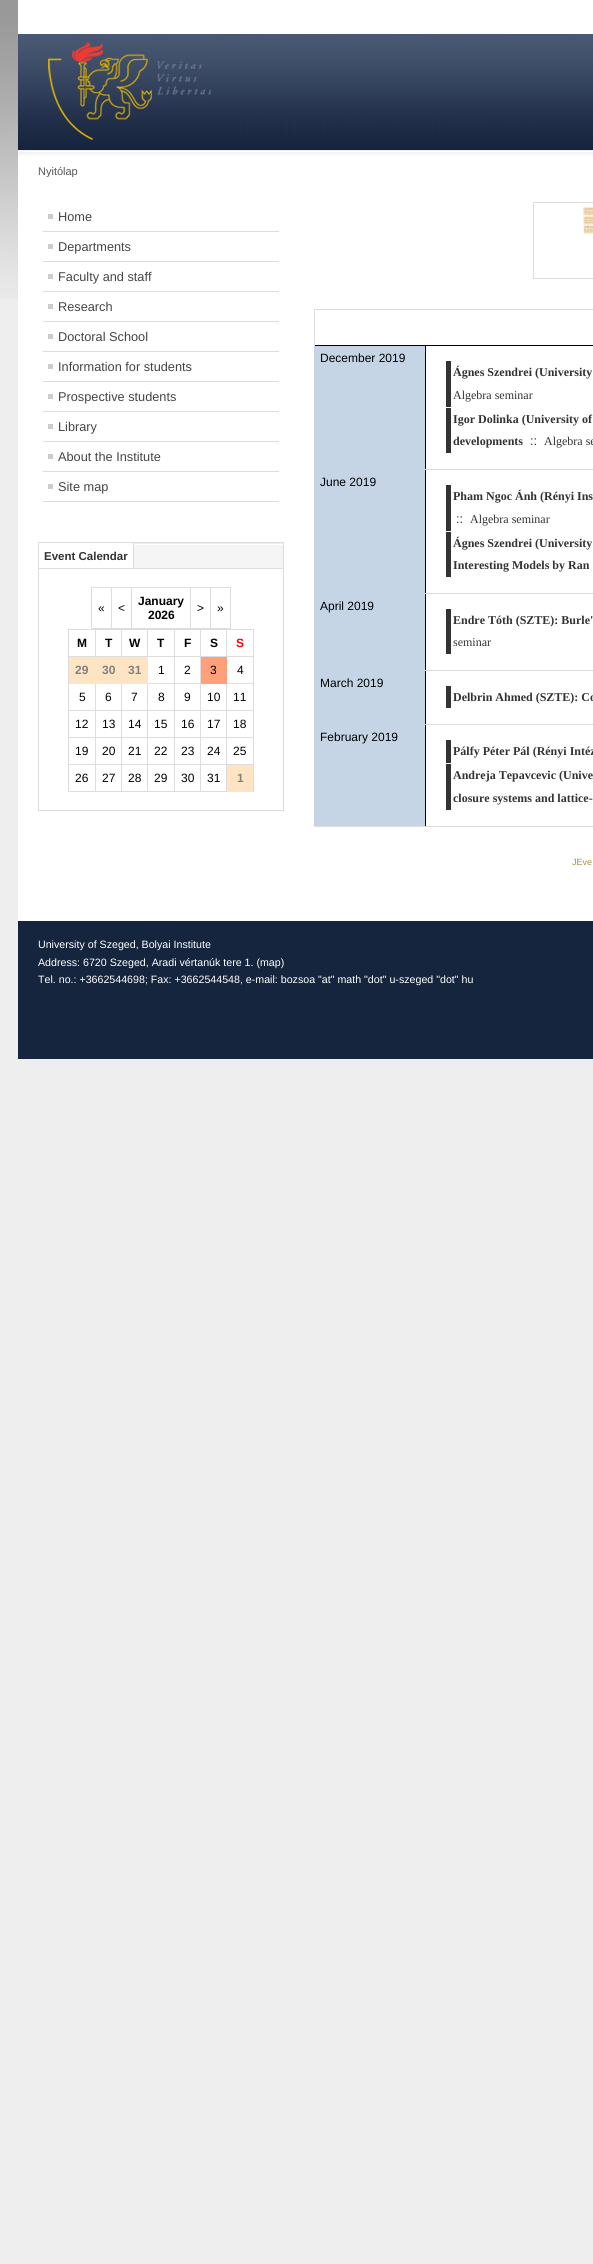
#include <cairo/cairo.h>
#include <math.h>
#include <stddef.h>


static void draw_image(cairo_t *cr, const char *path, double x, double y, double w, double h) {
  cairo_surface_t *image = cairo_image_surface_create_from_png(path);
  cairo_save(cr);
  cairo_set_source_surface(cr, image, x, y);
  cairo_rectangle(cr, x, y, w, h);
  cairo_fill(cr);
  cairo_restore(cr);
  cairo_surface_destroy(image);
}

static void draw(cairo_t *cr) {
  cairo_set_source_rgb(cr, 238 / 255.0, 238 / 255.0, 238 / 255.0);
  cairo_paint(cr);
  draw_image(cr, "images/1.png", 0, 0, 18, 299);
  cairo_set_source_rgb(cr, 1, 1, 1);
  cairo_rectangle(cr, 18, 0, 575, 34);
  cairo_fill(cr);
  draw_image(cr, "images/2.png", 18, 34, 575, 116);
  cairo_rectangle(cr, 18, 156, 575, 765);
  cairo_fill(cr);
  draw_image(cr, "images/3.png", 18, 150, 575, 6);
  cairo_set_source_rgb(cr, 221 / 255.0, 221 / 255.0, 221 / 255.0);
  cairo_rectangle(cr, 43, 231, 236, 1);
  cairo_fill(cr);
  cairo_set_source_rgb(cr, 204 / 255.0, 204 / 255.0, 204 / 255.0);
  cairo_rectangle(cr, 48, 214, 5, 5);
  cairo_fill(cr);
  cairo_set_source_rgb(cr, 221 / 255.0, 221 / 255.0, 221 / 255.0);
  cairo_rectangle(cr, 43, 261, 236, 1);
  cairo_fill(cr);
  cairo_set_source_rgb(cr, 204 / 255.0, 204 / 255.0, 204 / 255.0);
  cairo_rectangle(cr, 48, 244, 5, 5);
  cairo_fill(cr);
  cairo_set_source_rgb(cr, 221 / 255.0, 221 / 255.0, 221 / 255.0);
  cairo_rectangle(cr, 43, 291, 236, 1);
  cairo_fill(cr);
  cairo_set_source_rgb(cr, 204 / 255.0, 204 / 255.0, 204 / 255.0);
  cairo_rectangle(cr, 48, 274, 5, 5);
  cairo_fill(cr);
  cairo_set_source_rgb(cr, 221 / 255.0, 221 / 255.0, 221 / 255.0);
  cairo_rectangle(cr, 43, 321, 236, 1);
  cairo_fill(cr);
  cairo_set_source_rgb(cr, 204 / 255.0, 204 / 255.0, 204 / 255.0);
  cairo_rectangle(cr, 48, 304, 5, 5);
  cairo_fill(cr);
  cairo_set_source_rgb(cr, 221 / 255.0, 221 / 255.0, 221 / 255.0);
  cairo_rectangle(cr, 43, 351, 236, 1);
  cairo_fill(cr);
  cairo_set_source_rgb(cr, 204 / 255.0, 204 / 255.0, 204 / 255.0);
  cairo_rectangle(cr, 48, 334, 5, 5);
  cairo_fill(cr);
  cairo_set_source_rgb(cr, 221 / 255.0, 221 / 255.0, 221 / 255.0);
  cairo_rectangle(cr, 43, 381, 236, 1);
  cairo_fill(cr);
  cairo_set_source_rgb(cr, 204 / 255.0, 204 / 255.0, 204 / 255.0);
  cairo_rectangle(cr, 48, 364, 5, 5);
  cairo_fill(cr);
  cairo_set_source_rgb(cr, 221 / 255.0, 221 / 255.0, 221 / 255.0);
  cairo_rectangle(cr, 43, 411, 236, 1);
  cairo_fill(cr);
  cairo_set_source_rgb(cr, 204 / 255.0, 204 / 255.0, 204 / 255.0);
  cairo_rectangle(cr, 48, 394, 5, 5);
  cairo_fill(cr);
  cairo_set_source_rgb(cr, 221 / 255.0, 221 / 255.0, 221 / 255.0);
  cairo_rectangle(cr, 43, 441, 236, 1);
  cairo_fill(cr);
  cairo_set_source_rgb(cr, 204 / 255.0, 204 / 255.0, 204 / 255.0);
  cairo_rectangle(cr, 48, 424, 5, 5);
  cairo_fill(cr);
  cairo_set_source_rgb(cr, 221 / 255.0, 221 / 255.0, 221 / 255.0);
  cairo_rectangle(cr, 43, 471, 236, 1);
  cairo_fill(cr);
  cairo_set_source_rgb(cr, 204 / 255.0, 204 / 255.0, 204 / 255.0);
  cairo_rectangle(cr, 48, 454, 5, 5);
  cairo_fill(cr);
  cairo_set_source_rgb(cr, 221 / 255.0, 221 / 255.0, 221 / 255.0);
  cairo_rectangle(cr, 43, 501, 236, 1);
  cairo_fill(cr);
  cairo_set_source_rgb(cr, 204 / 255.0, 204 / 255.0, 204 / 255.0);
  cairo_rectangle(cr, 48, 484, 5, 5);
  cairo_fill(cr);
  cairo_set_source_rgb(cr, 245 / 255.0, 245 / 255.0, 245 / 255.0);
  cairo_rectangle(cr, 134, 545, 149, 23);
  cairo_fill(cr);
  draw_image(cr, "images/4.png", 134, 543, 149, 2);
  cairo_set_source_rgb(cr, 221 / 255.0, 221 / 255.0, 221 / 255.0);
  cairo_rectangle(cr, 38, 542, 246, 1);
  cairo_fill(cr);
  cairo_rectangle(cr, 283, 542, 1, 27);
  cairo_fill(cr);
  cairo_rectangle(cr, 38, 542, 1, 27);
  cairo_fill(cr);
  cairo_rectangle(cr, 133, 543, 1, 26);
  cairo_fill(cr);
  cairo_rectangle(cr, 38.5, 568.5, 245, 242);
  cairo_set_line_width(cr, 1);
  cairo_stroke(cr);
  cairo_rectangle(cr, 91, 587, 140, 1);
  cairo_fill(cr);
  cairo_rectangle(cr, 230, 587, 1, 42);
  cairo_fill(cr);
  cairo_rectangle(cr, 91, 628, 140, 1);
  cairo_fill(cr);
  cairo_rectangle(cr, 91, 587, 1, 42);
  cairo_fill(cr);
  cairo_rectangle(cr, 111, 587, 1, 42);
  cairo_fill(cr);
  cairo_rectangle(cr, 131, 587, 1, 42);
  cairo_fill(cr);
  cairo_rectangle(cr, 190, 587, 1, 42);
  cairo_fill(cr);
  cairo_rectangle(cr, 210, 587, 1, 42);
  cairo_fill(cr);
  cairo_rectangle(cr, 68, 629, 186, 1);
  cairo_fill(cr);
  cairo_rectangle(cr, 253, 629, 1, 163);
  cairo_fill(cr);
  cairo_rectangle(cr, 68, 791, 186, 1);
  cairo_fill(cr);
  cairo_rectangle(cr, 68, 629, 1, 163);
  cairo_fill(cr);
  cairo_rectangle(cr, 68, 656, 186, 1);
  cairo_fill(cr);
  cairo_rectangle(cr, 95, 629, 1, 28);
  cairo_fill(cr);
  cairo_rectangle(cr, 121, 629, 1, 28);
  cairo_fill(cr);
  cairo_rectangle(cr, 147, 629, 1, 28);
  cairo_fill(cr);
  cairo_rectangle(cr, 226, 629, 1, 28);
  cairo_fill(cr);
  cairo_rectangle(cr, 68, 683, 186, 1);
  cairo_fill(cr);
  cairo_rectangle(cr, 68, 710, 186, 1);
  cairo_fill(cr);
  cairo_rectangle(cr, 68, 737, 186, 1);
  cairo_fill(cr);
  cairo_rectangle(cr, 68, 764, 186, 1);
  cairo_fill(cr);
  cairo_rectangle(cr, 95, 683, 1, 109);
  cairo_fill(cr);
  cairo_rectangle(cr, 121, 683, 1, 109);
  cairo_fill(cr);
  cairo_rectangle(cr, 147, 683, 1, 109);
  cairo_fill(cr);
  cairo_set_source_rgb(cr, 1, 228 / 255.0, 196 / 255.0);
  cairo_rectangle(cr, 69, 657, 79, 27);
  cairo_fill(cr);
  cairo_set_source_rgb(cr, 221 / 255.0, 221 / 255.0, 221 / 255.0);
  cairo_rectangle(cr, 226, 683, 1, 109);
  cairo_fill(cr);
  cairo_set_source_rgb(cr, 1, 160 / 255.0, 122 / 255.0);
  cairo_rectangle(cr, 201, 657, 26, 27);
  cairo_fill(cr);
  cairo_set_source_rgb(cr, 221 / 255.0, 221 / 255.0, 221 / 255.0);
  cairo_rectangle(cr, 174, 629, 1, 163);
  cairo_fill(cr);
  cairo_rectangle(cr, 200, 629, 1, 163);
  cairo_fill(cr);
  cairo_set_source_rgb(cr, 1, 228 / 255.0, 196 / 255.0);
  cairo_rectangle(cr, 227, 765, 26, 27);
  cairo_fill(cr);
  cairo_set_source_rgb(cr, 221 / 255.0, 221 / 255.0, 221 / 255.0);
  cairo_rectangle(cr, 533, 202, 60, 1);
  cairo_fill(cr);
  cairo_rectangle(cr, 533, 278, 60, 1);
  cairo_fill(cr);
  cairo_rectangle(cr, 533, 202, 1, 77);
  cairo_fill(cr);
  draw_image(cr, "images/5.png", 583, 203, 10, 31);
  cairo_rectangle(cr, 314, 309, 279, 1);
  cairo_fill(cr);
  cairo_rectangle(cr, 426, 826, 167, 1);
  cairo_fill(cr);
  cairo_set_source_rgb(cr, 0, 0, 0);
  cairo_rectangle(cr, 425, 724, 1, 103);
  cairo_fill(cr);
  cairo_set_source_rgb(cr, 221 / 255.0, 221 / 255.0, 221 / 255.0);
  cairo_rectangle(cr, 425, 724, 168, 1);
  cairo_fill(cr);
  cairo_set_source_rgb(cr, 0, 0, 0);
  cairo_rectangle(cr, 425, 670, 1, 55);
  cairo_fill(cr);
  cairo_set_source_rgb(cr, 221 / 255.0, 221 / 255.0, 221 / 255.0);
  cairo_rectangle(cr, 425, 670, 168, 1);
  cairo_fill(cr);
  cairo_set_source_rgb(cr, 0, 0, 0);
  cairo_rectangle(cr, 425, 593, 1, 78);
  cairo_fill(cr);
  cairo_set_source_rgb(cr, 221 / 255.0, 221 / 255.0, 221 / 255.0);
  cairo_rectangle(cr, 425, 593, 168, 1);
  cairo_fill(cr);
  cairo_set_source_rgb(cr, 0, 0, 0);
  cairo_rectangle(cr, 425, 469, 1, 125);
  cairo_fill(cr);
  cairo_set_source_rgb(cr, 221 / 255.0, 221 / 255.0, 221 / 255.0);
  cairo_rectangle(cr, 425, 469, 168, 1);
  cairo_fill(cr);
  cairo_set_source_rgb(cr, 0, 0, 0);
  cairo_rectangle(cr, 425, 345, 1, 125);
  cairo_fill(cr);
  cairo_rectangle(cr, 314, 345, 279, 1);
  cairo_fill(cr);
  cairo_set_source_rgb(cr, 221 / 255.0, 221 / 255.0, 221 / 255.0);
  cairo_rectangle(cr, 314, 309, 1, 37);
  cairo_fill(cr);
  cairo_rectangle(cr, 425, 469, 1, 1);
  cairo_fill(cr);
  cairo_set_source_rgb(cr, 197 / 255.0, 213 / 255.0, 229 / 255.0);
  cairo_rectangle(cr, 314, 346, 111, 480);
  cairo_fill(cr);
  cairo_set_source_rgb(cr, 51 / 255.0, 51 / 255.0, 51 / 255.0);
  cairo_rectangle(cr, 446, 361, 5, 46);
  cairo_fill(cr);
  cairo_rectangle(cr, 446, 408, 5, 45);
  cairo_fill(cr);
  cairo_set_source_rgb(cr, 221 / 255.0, 221 / 255.0, 221 / 255.0);
  cairo_rectangle(cr, 425, 593, 1, 1);
  cairo_fill(cr);
  cairo_set_source_rgb(cr, 51 / 255.0, 51 / 255.0, 51 / 255.0);
  cairo_rectangle(cr, 446, 485, 5, 46);
  cairo_fill(cr);
  cairo_rectangle(cr, 446, 532, 5, 45);
  cairo_fill(cr);
  cairo_set_source_rgb(cr, 221 / 255.0, 221 / 255.0, 221 / 255.0);
  cairo_rectangle(cr, 425, 670, 1, 1);
  cairo_fill(cr);
  cairo_set_source_rgb(cr, 51 / 255.0, 51 / 255.0, 51 / 255.0);
  cairo_rectangle(cr, 446, 609, 5, 45);
  cairo_fill(cr);
  cairo_set_source_rgb(cr, 221 / 255.0, 221 / 255.0, 221 / 255.0);
  cairo_rectangle(cr, 425, 724, 1, 1);
  cairo_fill(cr);
  cairo_set_source_rgb(cr, 51 / 255.0, 51 / 255.0, 51 / 255.0);
  cairo_rectangle(cr, 446, 686, 5, 22);
  cairo_fill(cr);
  cairo_set_source_rgb(cr, 221 / 255.0, 221 / 255.0, 221 / 255.0);
  cairo_rectangle(cr, 314, 826, 112, 1);
  cairo_fill(cr);
  cairo_set_source_rgb(cr, 51 / 255.0, 51 / 255.0, 51 / 255.0);
  cairo_rectangle(cr, 446, 740, 5, 23);
  cairo_fill(cr);
  cairo_rectangle(cr, 446, 764, 5, 46);
  cairo_fill(cr);
  cairo_set_source_rgb(cr, 21 / 255.0, 37 / 255.0, 62 / 255.0);
  cairo_rectangle(cr, 18, 921, 575, 138);
  cairo_fill(cr);
  cairo_save(cr);
  cairo_rectangle(cr, 38, 165, 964, 12);
  cairo_clip(cr);
  cairo_select_font_face(cr, "Liberation Sans", CAIRO_FONT_SLANT_NORMAL, CAIRO_FONT_WEIGHT_NORMAL);
  cairo_set_font_size(cr, 11);
  cairo_set_source_rgb(cr, 85 / 255.0, 85 / 255.0, 85 / 255.0);
  cairo_move_to(cr, 38, 175);
  cairo_show_text(cr, "Nyitólap");
  cairo_restore(cr);
  cairo_select_font_face(cr, "Liberation Sans", CAIRO_FONT_SLANT_NORMAL, CAIRO_FONT_WEIGHT_NORMAL);
  cairo_set_font_size(cr, 12.75);
  cairo_set_source_rgb(cr, 68 / 255.0, 68 / 255.0, 68 / 255.0);
  cairo_move_to(cr, 58, 221);
  cairo_show_text(cr, "Home");
  cairo_move_to(cr, 58, 251);
  cairo_show_text(cr, "Departments");
  cairo_move_to(cr, 58, 281);
  cairo_show_text(cr, "Faculty and staff");
  cairo_move_to(cr, 58, 311);
  cairo_show_text(cr, "Research");
  cairo_move_to(cr, 58, 341);
  cairo_show_text(cr, "Doctoral School");
  cairo_move_to(cr, 58, 371);
  cairo_show_text(cr, "Information for students");
  cairo_move_to(cr, 58, 401);
  cairo_show_text(cr, "Prospective students");
  cairo_move_to(cr, 58, 431);
  cairo_show_text(cr, "Library");
  cairo_move_to(cr, 58, 461);
  cairo_show_text(cr, "About the Institute");
  cairo_move_to(cr, 58, 491);
  cairo_show_text(cr, "Site map");
  cairo_select_font_face(cr, "Liberation Sans", CAIRO_FONT_SLANT_NORMAL, CAIRO_FONT_WEIGHT_BOLD);
  cairo_set_font_size(cr, 11.5);
  cairo_set_source_rgb(cr, 51 / 255.0, 51 / 255.0, 51 / 255.0);
  cairo_move_to(cr, 44, 560);
  cairo_show_text(cr, "Event Calendar");
  cairo_select_font_face(cr, "Liberation Sans", CAIRO_FONT_SLANT_NORMAL, CAIRO_FONT_WEIGHT_NORMAL);
  cairo_set_font_size(cr, 12);
  cairo_set_source_rgb(cr, 0, 0, 0);
  cairo_move_to(cr, 98, 612);
  cairo_show_text(cr, "«");
  cairo_move_to(cr, 118, 612);
  cairo_show_text(cr, "<");
  cairo_select_font_face(cr, "Liberation Sans", CAIRO_FONT_SLANT_NORMAL, CAIRO_FONT_WEIGHT_BOLD);
  cairo_move_to(cr, 138, 605);
  cairo_show_text(cr, "January");
  cairo_move_to(cr, 148, 619);
  cairo_show_text(cr, "2026");
  cairo_select_font_face(cr, "Liberation Sans", CAIRO_FONT_SLANT_NORMAL, CAIRO_FONT_WEIGHT_NORMAL);
  cairo_move_to(cr, 197, 612);
  cairo_show_text(cr, ">");
  cairo_move_to(cr, 217, 612);
  cairo_show_text(cr, "»");
  cairo_select_font_face(cr, "Liberation Sans", CAIRO_FONT_SLANT_NORMAL, CAIRO_FONT_WEIGHT_BOLD);
  cairo_move_to(cr, 77, 647);
  cairo_show_text(cr, "M");
  cairo_move_to(cr, 105, 647);
  cairo_show_text(cr, "T");
  cairo_move_to(cr, 129, 647);
  cairo_show_text(cr, "W");
  cairo_move_to(cr, 157, 647);
  cairo_show_text(cr, "T");
  cairo_move_to(cr, 184, 647);
  cairo_show_text(cr, "F");
  cairo_move_to(cr, 210, 647);
  cairo_show_text(cr, "S");
  cairo_set_source_rgb(cr, 1, 0, 0);
  cairo_move_to(cr, 236, 647);
  cairo_show_text(cr, "S");
  cairo_set_source_rgb(cr, 128 / 255.0, 128 / 255.0, 128 / 255.0);
  cairo_move_to(cr, 75, 674);
  cairo_show_text(cr, "29");
  cairo_move_to(cr, 102, 674);
  cairo_show_text(cr, "30");
  cairo_move_to(cr, 128, 674);
  cairo_show_text(cr, "31");
  cairo_select_font_face(cr, "Liberation Sans", CAIRO_FONT_SLANT_NORMAL, CAIRO_FONT_WEIGHT_NORMAL);
  cairo_set_source_rgb(cr, 0, 0, 0);
  cairo_move_to(cr, 158, 674);
  cairo_show_text(cr, "1");
  cairo_move_to(cr, 184, 674);
  cairo_show_text(cr, "2");
  cairo_move_to(cr, 210, 674);
  cairo_show_text(cr, "3");
  cairo_move_to(cr, 237, 674);
  cairo_show_text(cr, "4");
  cairo_move_to(cr, 79, 701);
  cairo_show_text(cr, "5");
  cairo_move_to(cr, 105, 701);
  cairo_show_text(cr, "6");
  cairo_move_to(cr, 131, 701);
  cairo_show_text(cr, "7");
  cairo_move_to(cr, 158, 701);
  cairo_show_text(cr, "8");
  cairo_move_to(cr, 184, 701);
  cairo_show_text(cr, "9");
  cairo_move_to(cr, 207, 701);
  cairo_show_text(cr, "10");
  cairo_move_to(cr, 233, 701);
  cairo_show_text(cr, "11");
  cairo_move_to(cr, 75, 728);
  cairo_show_text(cr, "12");
  cairo_move_to(cr, 102, 728);
  cairo_show_text(cr, "13");
  cairo_move_to(cr, 128, 728);
  cairo_show_text(cr, "14");
  cairo_move_to(cr, 154, 728);
  cairo_show_text(cr, "15");
  cairo_move_to(cr, 181, 728);
  cairo_show_text(cr, "16");
  cairo_move_to(cr, 207, 728);
  cairo_show_text(cr, "17");
  cairo_move_to(cr, 233, 728);
  cairo_show_text(cr, "18");
  cairo_move_to(cr, 75, 755);
  cairo_show_text(cr, "19");
  cairo_move_to(cr, 102, 755);
  cairo_show_text(cr, "20");
  cairo_move_to(cr, 128, 755);
  cairo_show_text(cr, "21");
  cairo_move_to(cr, 154, 755);
  cairo_show_text(cr, "22");
  cairo_move_to(cr, 181, 755);
  cairo_show_text(cr, "23");
  cairo_move_to(cr, 207, 755);
  cairo_show_text(cr, "24");
  cairo_move_to(cr, 233, 755);
  cairo_show_text(cr, "25");
  cairo_move_to(cr, 75, 782);
  cairo_show_text(cr, "26");
  cairo_move_to(cr, 102, 782);
  cairo_show_text(cr, "27");
  cairo_move_to(cr, 128, 782);
  cairo_show_text(cr, "28");
  cairo_move_to(cr, 154, 782);
  cairo_show_text(cr, "29");
  cairo_move_to(cr, 181, 782);
  cairo_show_text(cr, "30");
  cairo_move_to(cr, 207, 782);
  cairo_show_text(cr, "31");
  cairo_select_font_face(cr, "Liberation Sans", CAIRO_FONT_SLANT_NORMAL, CAIRO_FONT_WEIGHT_BOLD);
  cairo_set_source_rgb(cr, 128 / 255.0, 128 / 255.0, 128 / 255.0);
  cairo_move_to(cr, 237, 782);
  cairo_show_text(cr, "1");
  cairo_select_font_face(cr, "Liberation Sans", CAIRO_FONT_SLANT_NORMAL, CAIRO_FONT_WEIGHT_NORMAL);
  cairo_set_source_rgb(cr, 0, 0, 0);
  cairo_move_to(cr, 320, 362);
  cairo_show_text(cr, "December 2019");
  cairo_select_font_face(cr, "Liberation Serif", CAIRO_FONT_SLANT_NORMAL, CAIRO_FONT_WEIGHT_BOLD);
  cairo_set_source_rgb(cr, 51 / 255.0, 51 / 255.0, 51 / 255.0);
  cairo_move_to(cr, 453, 376);
  cairo_show_text(cr, "Ágnes Szendrei (University");
  cairo_select_font_face(cr, "Liberation Serif", CAIRO_FONT_SLANT_NORMAL, CAIRO_FONT_WEIGHT_NORMAL);
  cairo_move_to(cr, 453, 399);
  cairo_show_text(cr, "Algebra seminar");
  cairo_select_font_face(cr, "Liberation Serif", CAIRO_FONT_SLANT_NORMAL, CAIRO_FONT_WEIGHT_BOLD);
  cairo_move_to(cr, 453, 423);
  cairo_show_text(cr, "Igor Dolinka (University of");
  cairo_move_to(cr, 453, 445);
  cairo_show_text(cr, "developments");
  cairo_select_font_face(cr, "Liberation Sans", CAIRO_FONT_SLANT_NORMAL, CAIRO_FONT_WEIGHT_NORMAL);
  cairo_set_font_size(cr, 12.75);
  cairo_move_to(cr, 530, 445);
  cairo_show_text(cr, "::");
  cairo_select_font_face(cr, "Liberation Serif", CAIRO_FONT_SLANT_NORMAL, CAIRO_FONT_WEIGHT_NORMAL);
  cairo_set_font_size(cr, 12);
  cairo_move_to(cr, 544, 445);
  cairo_show_text(cr, "Algebra se");
  cairo_select_font_face(cr, "Liberation Sans", CAIRO_FONT_SLANT_NORMAL, CAIRO_FONT_WEIGHT_NORMAL);
  cairo_set_source_rgb(cr, 0, 0, 0);
  cairo_move_to(cr, 320, 486);
  cairo_show_text(cr, "June 2019");
  cairo_select_font_face(cr, "Liberation Serif", CAIRO_FONT_SLANT_NORMAL, CAIRO_FONT_WEIGHT_BOLD);
  cairo_set_source_rgb(cr, 51 / 255.0, 51 / 255.0, 51 / 255.0);
  cairo_move_to(cr, 453, 500);
  cairo_show_text(cr, "Pham Ngoc Ánh (Rényi Ins");
  cairo_select_font_face(cr, "Liberation Sans", CAIRO_FONT_SLANT_NORMAL, CAIRO_FONT_WEIGHT_NORMAL);
  cairo_set_font_size(cr, 12.75);
  cairo_move_to(cr, 456, 523);
  cairo_show_text(cr, "::");
  cairo_select_font_face(cr, "Liberation Serif", CAIRO_FONT_SLANT_NORMAL, CAIRO_FONT_WEIGHT_NORMAL);
  cairo_set_font_size(cr, 12);
  cairo_move_to(cr, 470, 523);
  cairo_show_text(cr, "Algebra seminar");
  cairo_select_font_face(cr, "Liberation Serif", CAIRO_FONT_SLANT_NORMAL, CAIRO_FONT_WEIGHT_BOLD);
  cairo_move_to(cr, 453, 547);
  cairo_show_text(cr, "Ágnes Szendrei (University");
  cairo_move_to(cr, 453, 569);
  cairo_show_text(cr, "Interesting Models by Ran");
  cairo_select_font_face(cr, "Liberation Sans", CAIRO_FONT_SLANT_NORMAL, CAIRO_FONT_WEIGHT_NORMAL);
  cairo_set_source_rgb(cr, 0, 0, 0);
  cairo_move_to(cr, 320, 610);
  cairo_show_text(cr, "April 2019");
  cairo_select_font_face(cr, "Liberation Serif", CAIRO_FONT_SLANT_NORMAL, CAIRO_FONT_WEIGHT_BOLD);
  cairo_set_source_rgb(cr, 51 / 255.0, 51 / 255.0, 51 / 255.0);
  cairo_move_to(cr, 453, 624);
  cairo_show_text(cr, "Endre Tóth (SZTE): Burle'");
  cairo_select_font_face(cr, "Liberation Serif", CAIRO_FONT_SLANT_NORMAL, CAIRO_FONT_WEIGHT_NORMAL);
  cairo_move_to(cr, 453, 646);
  cairo_show_text(cr, "seminar");
  cairo_select_font_face(cr, "Liberation Sans", CAIRO_FONT_SLANT_NORMAL, CAIRO_FONT_WEIGHT_NORMAL);
  cairo_set_source_rgb(cr, 0, 0, 0);
  cairo_move_to(cr, 320, 687);
  cairo_show_text(cr, "March 2019");
  cairo_select_font_face(cr, "Liberation Serif", CAIRO_FONT_SLANT_NORMAL, CAIRO_FONT_WEIGHT_BOLD);
  cairo_set_source_rgb(cr, 51 / 255.0, 51 / 255.0, 51 / 255.0);
  cairo_move_to(cr, 453, 701);
  cairo_show_text(cr, "Delbrin Ahmed (SZTE): Co");
  cairo_select_font_face(cr, "Liberation Sans", CAIRO_FONT_SLANT_NORMAL, CAIRO_FONT_WEIGHT_NORMAL);
  cairo_set_source_rgb(cr, 0, 0, 0);
  cairo_move_to(cr, 320, 741);
  cairo_show_text(cr, "February 2019");
  cairo_select_font_face(cr, "Liberation Serif", CAIRO_FONT_SLANT_NORMAL, CAIRO_FONT_WEIGHT_BOLD);
  cairo_set_source_rgb(cr, 51 / 255.0, 51 / 255.0, 51 / 255.0);
  cairo_move_to(cr, 453, 755);
  cairo_show_text(cr, "Pálfy Péter Pál (Rényi Intéz");
  cairo_move_to(cr, 453, 779);
  cairo_show_text(cr, "Andreja Tepavcevic (Unive");
  cairo_move_to(cr, 453, 802);
  cairo_show_text(cr, "closure systems and lattice-");
  cairo_select_font_face(cr, "Liberation Sans", CAIRO_FONT_SLANT_NORMAL, CAIRO_FONT_WEIGHT_NORMAL);
  cairo_set_font_size(cr, 9);
  cairo_set_source_rgb(cr, 163 / 255.0, 143 / 255.0, 72 / 255.0);
  cairo_move_to(cr, 572, 865);
  cairo_show_text(cr, "JEve");
  cairo_set_font_size(cr, 10.65);
  cairo_set_source_rgb(cr, 1, 1, 1);
  cairo_move_to(cr, 38, 948);
  cairo_show_text(cr, "University of Szeged, Bolyai Institute");
  cairo_move_to(cr, 38, 966);
  cairo_show_text(cr, "Address: 6720 Szeged, Aradi vértanúk tere 1. (map)");
  cairo_move_to(cr, 38, 983);
  cairo_show_text(cr, "Tel. no.: +3662544698; Fax: +3662544548, e-mail: bozsoa \"at\" math \"dot\" u-szeged \"dot\" hu");
}

int main(void) {
  cairo_surface_t *surface = cairo_image_surface_create(CAIRO_FORMAT_RGB24, 593, 2264);
  cairo_t *cr = cairo_create(surface);
  cairo_font_options_t *options = cairo_font_options_create();
  cairo_font_options_set_hint_metrics(options, CAIRO_HINT_METRICS_OFF);
  cairo_font_options_set_hint_style(options, CAIRO_HINT_STYLE_NONE);
  cairo_set_font_options(cr, options);
  cairo_set_miter_limit(cr, 4);
  draw(cr);
  cairo_surface_write_to_png(surface, "out.png");
  cairo_font_options_destroy(options);
  cairo_destroy(cr);
  cairo_surface_destroy(surface);
  return 0;
}
